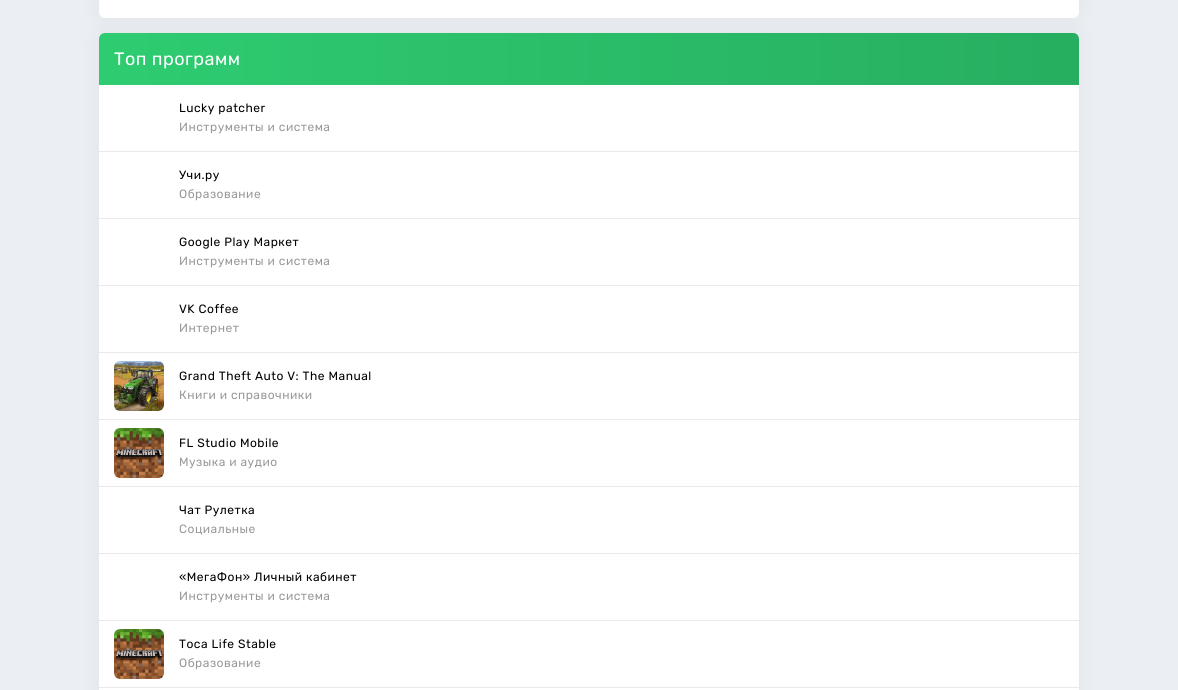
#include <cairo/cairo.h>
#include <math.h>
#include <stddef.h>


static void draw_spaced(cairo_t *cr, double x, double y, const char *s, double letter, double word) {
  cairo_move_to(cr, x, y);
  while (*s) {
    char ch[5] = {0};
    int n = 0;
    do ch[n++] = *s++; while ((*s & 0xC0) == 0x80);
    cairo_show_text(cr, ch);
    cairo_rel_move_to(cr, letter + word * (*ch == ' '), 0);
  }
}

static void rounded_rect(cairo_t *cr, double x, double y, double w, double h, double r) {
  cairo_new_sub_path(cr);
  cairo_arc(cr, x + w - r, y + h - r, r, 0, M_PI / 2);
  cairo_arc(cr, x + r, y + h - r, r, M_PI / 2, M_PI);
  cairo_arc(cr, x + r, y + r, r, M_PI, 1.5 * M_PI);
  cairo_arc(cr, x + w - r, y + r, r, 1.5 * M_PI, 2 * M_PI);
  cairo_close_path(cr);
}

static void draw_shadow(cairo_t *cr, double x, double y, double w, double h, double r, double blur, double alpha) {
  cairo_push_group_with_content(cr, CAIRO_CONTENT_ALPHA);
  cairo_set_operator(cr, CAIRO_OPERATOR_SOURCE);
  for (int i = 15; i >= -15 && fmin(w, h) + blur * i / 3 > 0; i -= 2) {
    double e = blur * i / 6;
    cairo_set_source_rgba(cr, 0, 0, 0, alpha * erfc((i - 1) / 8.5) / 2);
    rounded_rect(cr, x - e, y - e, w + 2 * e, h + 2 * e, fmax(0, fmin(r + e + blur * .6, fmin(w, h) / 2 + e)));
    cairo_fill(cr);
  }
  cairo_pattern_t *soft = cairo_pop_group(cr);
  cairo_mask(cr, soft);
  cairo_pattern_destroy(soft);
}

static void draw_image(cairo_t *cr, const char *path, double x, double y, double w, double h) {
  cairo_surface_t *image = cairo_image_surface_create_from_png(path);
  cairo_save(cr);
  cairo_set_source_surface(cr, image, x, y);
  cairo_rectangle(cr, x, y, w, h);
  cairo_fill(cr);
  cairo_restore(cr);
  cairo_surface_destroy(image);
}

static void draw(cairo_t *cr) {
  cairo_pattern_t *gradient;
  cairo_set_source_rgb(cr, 235 / 255.0, 239 / 255.0, 243 / 255.0);
  cairo_paint(cr);
  cairo_set_source_rgb(cr, 0, 0, 0);
  draw_shadow(cr, 99, -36, 980, 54, 6, 10, 0.05);
  cairo_set_source_rgb(cr, 1, 1, 1);
  rounded_rect(cr, 99, -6, 980, 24, 6);
  cairo_fill(cr);
  cairo_set_source_rgb(cr, 0, 0, 0);
  draw_shadow(cr, 99, 33, 980, 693, 6, 10, 0.05);
  cairo_set_source_rgb(cr, 1, 1, 1);
  rounded_rect(cr, 99, 33, 980, 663, 6);
  cairo_fill(cr);
  gradient = cairo_pattern_create_linear(99, 59, 1079, 59);
  cairo_pattern_add_color_stop_rgba(gradient, 0, 46 / 255.0, 204 / 255.0, 113 / 255.0, 1);
  cairo_pattern_add_color_stop_rgba(gradient, 1, 39 / 255.0, 174 / 255.0, 96 / 255.0, 1);
  cairo_set_source(cr, gradient);
  cairo_pattern_destroy(gradient);
  cairo_new_path(cr);
  cairo_move_to(cr, 105, 33);
  cairo_line_to(cr, 1073, 33);
  cairo_curve_to(cr, 1076.5, 33, 1079, 35.5, 1079, 39);
  cairo_line_to(cr, 1079, 85);
  cairo_line_to(cr, 99, 85);
  cairo_line_to(cr, 99, 39);
  cairo_curve_to(cr, 99, 35.5, 101.5, 33, 105, 33);
  cairo_close_path(cr);
  cairo_fill(cr);
  cairo_set_source_rgb(cr, 233 / 255.0, 233 / 255.0, 233 / 255.0);
  cairo_rectangle(cr, 99, 151, 980, 1);
  cairo_fill(cr);
  cairo_rectangle(cr, 99, 218, 980, 1);
  cairo_fill(cr);
  cairo_rectangle(cr, 99, 285, 980, 1);
  cairo_fill(cr);
  cairo_rectangle(cr, 99, 352, 980, 1);
  cairo_fill(cr);
  draw_image(cr, "images/1.png", 114, 361, 50, 50);
  cairo_rectangle(cr, 99, 419, 980, 1);
  cairo_fill(cr);
  draw_image(cr, "images/2.png", 114, 428, 50, 50);
  cairo_rectangle(cr, 99, 486, 980, 1);
  cairo_fill(cr);
  cairo_rectangle(cr, 99, 553, 980, 1);
  cairo_fill(cr);
  cairo_rectangle(cr, 99, 620, 980, 1);
  cairo_fill(cr);
  draw_image(cr, "images/2.png", 114, 629, 50, 50);
  cairo_rectangle(cr, 99, 687, 980, 1);
  cairo_fill(cr);
  cairo_select_font_face(cr, "Rubik", CAIRO_FONT_SLANT_NORMAL, CAIRO_FONT_WEIGHT_NORMAL);
  cairo_set_font_size(cr, 18);
  cairo_set_source_rgb(cr, 1, 1, 1);
  draw_spaced(cr, 114, 65, "Топ программ", 0.5, 0);
  cairo_set_font_size(cr, 12);
  cairo_set_source_rgb(cr, 0, 0, 0);
  draw_spaced(cr, 179, 112, "Lucky patcher", 0.5, 0);
  cairo_set_source_rgb(cr, 153 / 255.0, 153 / 255.0, 153 / 255.0);
  draw_spaced(cr, 179, 131, "Инструменты и система", 0.5, 0);
  cairo_set_source_rgb(cr, 0, 0, 0);
  draw_spaced(cr, 179, 179, "Учи.ру", 0.5, 0);
  cairo_set_source_rgb(cr, 153 / 255.0, 153 / 255.0, 153 / 255.0);
  draw_spaced(cr, 179, 198, "Образование", 0.5, 0);
  cairo_set_source_rgb(cr, 0, 0, 0);
  draw_spaced(cr, 179, 246, "Google Play Маркет", 0.5, 0);
  cairo_set_source_rgb(cr, 153 / 255.0, 153 / 255.0, 153 / 255.0);
  draw_spaced(cr, 179, 265, "Инструменты и система", 0.5, 0);
  cairo_set_source_rgb(cr, 0, 0, 0);
  draw_spaced(cr, 179, 313, "VK Coffee", 0.5, 0);
  cairo_set_source_rgb(cr, 153 / 255.0, 153 / 255.0, 153 / 255.0);
  draw_spaced(cr, 179, 332, "Интернет", 0.5, 0);
  cairo_set_source_rgb(cr, 0, 0, 0);
  draw_spaced(cr, 179, 380, "Grand Theft Auto V: The Manual", 0.5, 0);
  cairo_set_source_rgb(cr, 153 / 255.0, 153 / 255.0, 153 / 255.0);
  draw_spaced(cr, 179, 399, "Книги и справочники", 0.5, 0);
  cairo_set_source_rgb(cr, 0, 0, 0);
  draw_spaced(cr, 179, 447, "FL Studio Mobile", 0.5, 0);
  cairo_set_source_rgb(cr, 153 / 255.0, 153 / 255.0, 153 / 255.0);
  draw_spaced(cr, 179, 466, "Музыка и аудио", 0.5, 0);
  cairo_set_source_rgb(cr, 0, 0, 0);
  draw_spaced(cr, 179, 514, "Чат Рулетка", 0.5, 0);
  cairo_set_source_rgb(cr, 153 / 255.0, 153 / 255.0, 153 / 255.0);
  draw_spaced(cr, 179, 533, "Социальные", 0.5, 0);
  cairo_set_source_rgb(cr, 0, 0, 0);
  draw_spaced(cr, 179, 581, "«МегаФон» Личный кабинет", 0.5, 0);
  cairo_set_source_rgb(cr, 153 / 255.0, 153 / 255.0, 153 / 255.0);
  draw_spaced(cr, 179, 600, "Инструменты и система", 0.5, 0);
  cairo_set_source_rgb(cr, 0, 0, 0);
  draw_spaced(cr, 179, 648, "Toca Life Stable", 0.5, 0);
  cairo_set_source_rgb(cr, 153 / 255.0, 153 / 255.0, 153 / 255.0);
  draw_spaced(cr, 179, 667, "Образование", 0.5, 0);
}

int main(void) {
  cairo_surface_t *surface = cairo_image_surface_create(CAIRO_FORMAT_RGB24, 1178, 690);
  cairo_t *cr = cairo_create(surface);
  cairo_font_options_t *options = cairo_font_options_create();
  cairo_font_options_set_hint_metrics(options, CAIRO_HINT_METRICS_OFF);
  cairo_font_options_set_hint_style(options, CAIRO_HINT_STYLE_NONE);
  cairo_set_font_options(cr, options);
  cairo_set_miter_limit(cr, 4);
  draw(cr);
  cairo_surface_write_to_png(surface, "out.png");
  cairo_font_options_destroy(options);
  cairo_destroy(cr);
  cairo_surface_destroy(surface);
  return 0;
}
